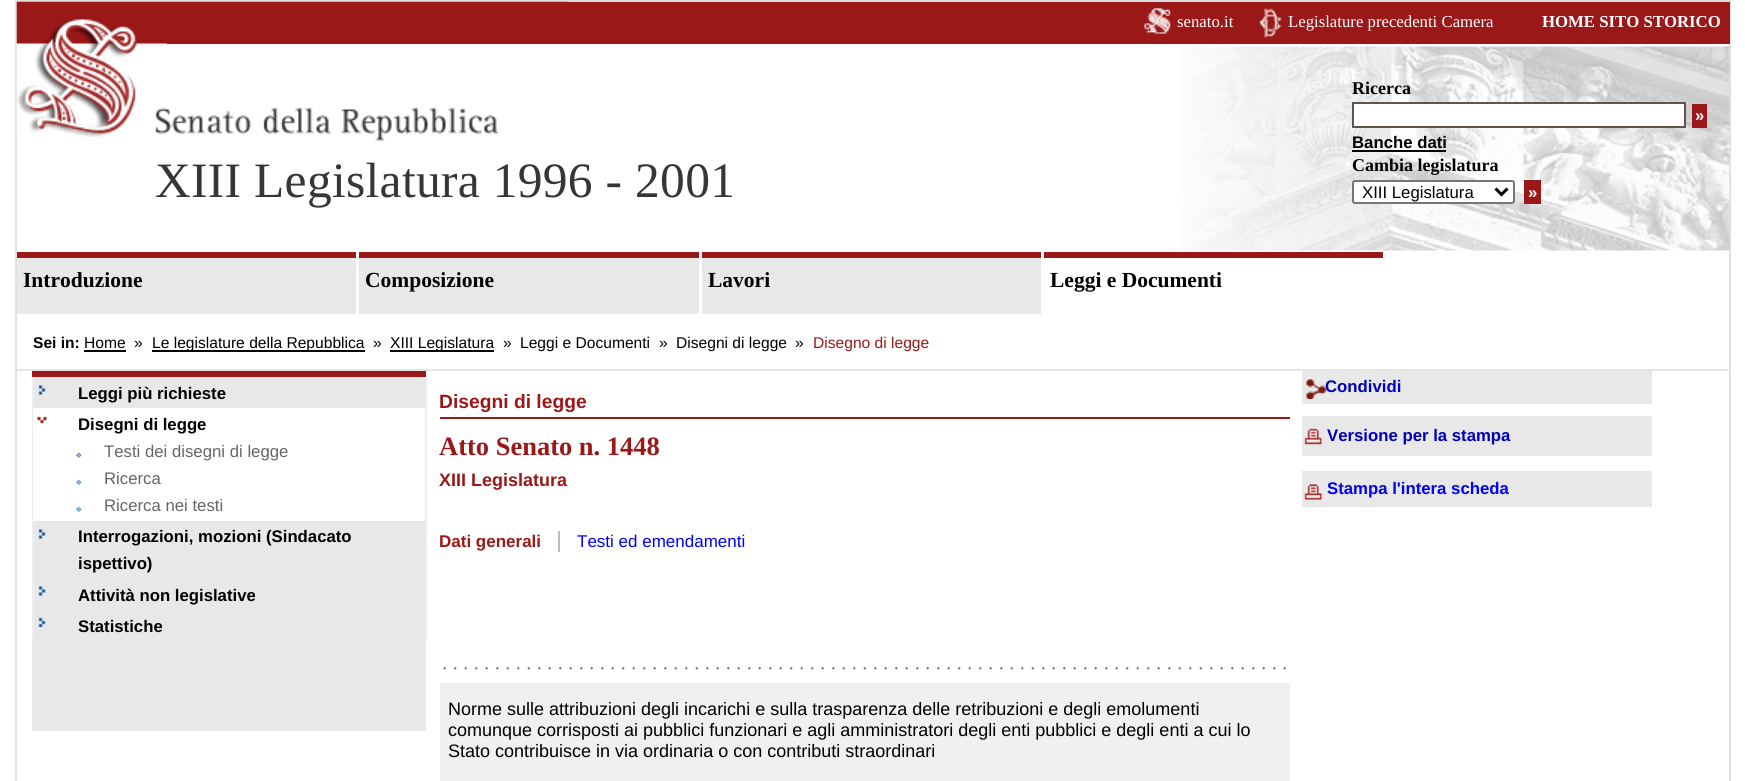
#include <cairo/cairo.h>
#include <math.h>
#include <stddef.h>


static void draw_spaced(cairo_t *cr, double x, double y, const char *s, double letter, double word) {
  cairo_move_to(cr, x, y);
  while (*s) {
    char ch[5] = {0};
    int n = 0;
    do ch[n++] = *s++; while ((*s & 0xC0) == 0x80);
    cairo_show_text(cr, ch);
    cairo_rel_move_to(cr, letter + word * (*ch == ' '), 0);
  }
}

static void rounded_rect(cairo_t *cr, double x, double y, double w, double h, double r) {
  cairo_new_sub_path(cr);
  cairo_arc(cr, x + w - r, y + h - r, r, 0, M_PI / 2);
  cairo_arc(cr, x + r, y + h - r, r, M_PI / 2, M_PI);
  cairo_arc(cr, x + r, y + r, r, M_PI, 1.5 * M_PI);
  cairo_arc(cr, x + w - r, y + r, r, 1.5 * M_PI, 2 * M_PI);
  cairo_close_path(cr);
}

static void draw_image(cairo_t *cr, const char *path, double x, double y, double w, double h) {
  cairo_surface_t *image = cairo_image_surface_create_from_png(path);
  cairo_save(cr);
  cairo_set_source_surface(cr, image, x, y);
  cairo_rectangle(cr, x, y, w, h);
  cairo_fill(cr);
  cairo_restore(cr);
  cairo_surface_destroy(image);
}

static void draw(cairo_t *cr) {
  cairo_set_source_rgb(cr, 1, 1, 1);
  cairo_paint(cr);
  cairo_rectangle(cr, 16, 1, 1714, 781);
  cairo_set_source_rgb(cr, 223 / 255.0, 223 / 255.0, 223 / 255.0);
  cairo_stroke(cr);
  draw_image(cr, "images/1.png", 1180, 46, 550, 205);
  draw_image(cr, "images/2.png", 16, 1, 553, 140);
  cairo_set_source_rgb(cr, 155 / 255.0, 24 / 255.0, 24 / 255.0);
  cairo_rectangle(cr, 167, 2, 1563, 42);
  cairo_fill(cr);
  draw_image(cr, "images/3.png", 1144, 8, 27, 26);
  draw_image(cr, "images/4.png", 1259, 8, 23, 30);
  cairo_set_source_rgb(cr, 1, 1, 1);
  cairo_rectangle(cr, 1353, 103, 332, 24);
  cairo_fill_preserve(cr);
  cairo_set_source_rgb(cr, 97 / 255.0, 83 / 255.0, 78 / 255.0);
  cairo_stroke(cr);
  cairo_set_source_rgb(cr, 155 / 255.0, 24 / 255.0, 24 / 255.0);
  cairo_rectangle(cr, 1692, 104, 15, 24);
  cairo_fill(cr);
  cairo_set_source_rgb(cr, 0, 0, 0);
  cairo_rectangle(cr, 1352, 150, 94, 2);
  cairo_fill(cr);
  cairo_set_source_rgb(cr, 1, 1, 1);
  rounded_rect(cr, 1353, 181, 161, 22, 2);
  cairo_fill_preserve(cr);
  cairo_set_source_rgb(cr, 118 / 255.0, 118 / 255.0, 118 / 255.0);
  cairo_stroke(cr);
  cairo_new_path(cr);
  cairo_move_to(cr, 1495.5, 188.5);
  cairo_line_to(cr, 1501.5, 194.5);
  cairo_line_to(cr, 1507.5, 188.5);
  cairo_set_source_rgb(cr, 0, 0, 0);
  cairo_set_line_width(cr, 3);
  cairo_stroke(cr);
  cairo_set_source_rgb(cr, 155 / 255.0, 24 / 255.0, 24 / 255.0);
  cairo_rectangle(cr, 1524, 180, 17, 24);
  cairo_fill(cr);
  cairo_set_source_rgb(cr, 232 / 255.0, 232 / 255.0, 232 / 255.0);
  cairo_rectangle(cr, 17, 258, 339, 56);
  cairo_fill(cr);
  cairo_set_source_rgb(cr, 155 / 255.0, 24 / 255.0, 24 / 255.0);
  cairo_rectangle(cr, 17, 252, 339, 6);
  cairo_fill(cr);
  cairo_set_source_rgb(cr, 232 / 255.0, 232 / 255.0, 232 / 255.0);
  cairo_rectangle(cr, 359, 258, 340, 56);
  cairo_fill(cr);
  cairo_set_source_rgb(cr, 155 / 255.0, 24 / 255.0, 24 / 255.0);
  cairo_rectangle(cr, 359, 252, 340, 6);
  cairo_fill(cr);
  cairo_set_source_rgb(cr, 232 / 255.0, 232 / 255.0, 232 / 255.0);
  cairo_rectangle(cr, 702, 258, 339, 56);
  cairo_fill(cr);
  cairo_set_source_rgb(cr, 155 / 255.0, 24 / 255.0, 24 / 255.0);
  cairo_rectangle(cr, 702, 252, 339, 6);
  cairo_fill(cr);
  cairo_rectangle(cr, 1044, 252, 339, 6);
  cairo_fill(cr);
  cairo_set_source_rgb(cr, 229 / 255.0, 229 / 255.0, 229 / 255.0);
  cairo_rectangle(cr, 17, 369, 1713, 2);
  cairo_fill(cr);
  cairo_set_source_rgb(cr, 0, 0, 0);
  cairo_rectangle(cr, 84, 350, 42, 2);
  cairo_fill(cr);
  cairo_rectangle(cr, 152, 350, 213, 2);
  cairo_fill(cr);
  cairo_rectangle(cr, 390, 350, 104, 2);
  cairo_fill(cr);
  cairo_set_source_rgb(cr, 232 / 255.0, 232 / 255.0, 232 / 255.0);
  cairo_rectangle(cr, 32, 377, 394, 354);
  cairo_fill(cr);
  cairo_set_source_rgb(cr, 155 / 255.0, 24 / 255.0, 24 / 255.0);
  cairo_rectangle(cr, 32, 371, 394, 6);
  cairo_fill(cr);
  cairo_set_source_rgb(cr, 237 / 255.0, 237 / 255.0, 237 / 255.0);
  cairo_rectangle(cr, 425, 377, 2, 264);
  cairo_fill(cr);
  cairo_rectangle(cr, 32, 377, 2, 264);
  cairo_fill(cr);
  draw_image(cr, "images/5.png", 38, 385, 8, 10);
  cairo_set_source_rgb(cr, 1, 1, 1);
  cairo_rectangle(cr, 33, 408, 392, 113);
  cairo_fill(cr);
  draw_image(cr, "images/6.png", 37, 416, 10, 8);
  draw_image(cr, "images/7.png", 76, 452, 6, 6);
  draw_image(cr, "images/7.png", 76, 479, 6, 6);
  draw_image(cr, "images/7.png", 76, 506, 6, 6);
  draw_image(cr, "images/5.png", 38, 529, 8, 10);
  draw_image(cr, "images/5.png", 38, 586, 8, 10);
  draw_image(cr, "images/8.png", 38, 617, 8, 10);
  cairo_set_source_rgb(cr, 155 / 255.0, 24 / 255.0, 24 / 255.0);
  cairo_rectangle(cr, 440, 417, 850, 2);
  cairo_fill(cr);
  cairo_set_source_rgb(cr, 188 / 255.0, 188 / 255.0, 188 / 255.0);
  cairo_rectangle(cr, 558, 531, 2, 21);
  cairo_fill(cr);
  draw_image(cr, "images/9.png", 443, 667, 843, 3);
  cairo_set_source_rgb(cr, 240 / 255.0, 240 / 255.0, 240 / 255.0);
  cairo_rectangle(cr, 440, 683, 850, 98);
  cairo_fill(cr);
  cairo_set_source_rgb(cr, 231 / 255.0, 232 / 255.0, 231 / 255.0);
  cairo_rectangle(cr, 1302, 371, 350, 33);
  cairo_fill(cr);
  draw_image(cr, "images/10.png", 1306, 378, 21, 21);
  cairo_rectangle(cr, 1302, 416, 350, 40);
  cairo_fill(cr);
  draw_image(cr, "images/11.png", 1304, 428, 18, 17);
  cairo_rectangle(cr, 1302, 471, 350, 36);
  cairo_fill(cr);
  draw_image(cr, "images/12.png", 1304, 484, 18, 16);
  cairo_select_font_face(cr, "Liberation Serif", CAIRO_FONT_SLANT_NORMAL, CAIRO_FONT_WEIGHT_NORMAL);
  cairo_set_font_size(cr, 49.5);
  cairo_set_source_rgb(cr, 56 / 255.0, 53 / 255.0, 53 / 255.0);
  draw_spaced(cr, 155, 197, "XIII Legislatura 1996 - 2001", 0.3, 0);
  cairo_set_font_size(cr, 16.75);
  cairo_set_source_rgb(cr, 1, 1, 1);
  cairo_move_to(cr, 1177, 27);
  cairo_show_text(cr, "senato.it");
  cairo_move_to(cr, 1288, 27);
  cairo_show_text(cr, "Legislature precedenti Camera");
  cairo_select_font_face(cr, "Liberation Serif", CAIRO_FONT_SLANT_NORMAL, CAIRO_FONT_WEIGHT_BOLD);
  cairo_move_to(cr, 1542, 27);
  cairo_show_text(cr, "HOME SITO STORICO");
  cairo_set_font_size(cr, 18);
  cairo_set_source_rgb(cr, 0, 0, 0);
  cairo_move_to(cr, 1352, 94);
  cairo_show_text(cr, "Ricerca");
  cairo_select_font_face(cr, "Liberation Sans", CAIRO_FONT_SLANT_NORMAL, CAIRO_FONT_WEIGHT_BOLD);
  cairo_set_font_size(cr, 16.75);
  cairo_set_source_rgb(cr, 1, 1, 1);
  cairo_move_to(cr, 1695, 121);
  cairo_show_text(cr, "»");
  cairo_set_source_rgb(cr, 0, 0, 0);
  cairo_move_to(cr, 1352, 148);
  cairo_show_text(cr, "Banche dati");
  cairo_select_font_face(cr, "Liberation Serif", CAIRO_FONT_SLANT_NORMAL, CAIRO_FONT_WEIGHT_BOLD);
  cairo_set_font_size(cr, 18);
  cairo_move_to(cr, 1352, 171);
  cairo_show_text(cr, "Cambia legislatura");
  cairo_select_font_face(cr, "Liberation Sans", CAIRO_FONT_SLANT_NORMAL, CAIRO_FONT_WEIGHT_NORMAL);
  cairo_set_font_size(cr, 16.75);
  cairo_move_to(cr, 1362, 198);
  cairo_show_text(cr, "XIII Legislatura");
  cairo_select_font_face(cr, "Liberation Sans", CAIRO_FONT_SLANT_NORMAL, CAIRO_FONT_WEIGHT_BOLD);
  cairo_set_source_rgb(cr, 1, 1, 1);
  cairo_move_to(cr, 1528, 198);
  cairo_show_text(cr, "»");
  cairo_select_font_face(cr, "Liberation Serif", CAIRO_FONT_SLANT_NORMAL, CAIRO_FONT_WEIGHT_BOLD);
  cairo_set_font_size(cr, 21.5);
  cairo_set_source_rgb(cr, 0, 0, 0);
  cairo_move_to(cr, 23, 287);
  cairo_show_text(cr, "Introduzione");
  cairo_move_to(cr, 365, 287);
  cairo_show_text(cr, "Composizione");
  cairo_move_to(cr, 708, 287);
  cairo_show_text(cr, "Lavori");
  cairo_move_to(cr, 1050, 287);
  cairo_show_text(cr, "Leggi e Documenti");
  cairo_select_font_face(cr, "Liberation Sans", CAIRO_FONT_SLANT_NORMAL, CAIRO_FONT_WEIGHT_BOLD);
  cairo_set_font_size(cr, 15.6);
  cairo_move_to(cr, 33, 348);
  cairo_show_text(cr, "Sei in:");
  cairo_select_font_face(cr, "Liberation Sans", CAIRO_FONT_SLANT_NORMAL, CAIRO_FONT_WEIGHT_NORMAL);
  cairo_move_to(cr, 84, 348);
  cairo_show_text(cr, "Home");
  cairo_move_to(cr, 134, 348);
  cairo_show_text(cr, "»");
  cairo_move_to(cr, 152, 348);
  cairo_show_text(cr, "Le legislature della Repubblica");
  cairo_move_to(cr, 373, 348);
  cairo_show_text(cr, "»");
  cairo_move_to(cr, 390, 348);
  cairo_show_text(cr, "XIII Legislatura");
  cairo_move_to(cr, 503, 348);
  cairo_show_text(cr, "»");
  cairo_move_to(cr, 520, 348);
  cairo_show_text(cr, "Leggi e Documenti");
  cairo_move_to(cr, 659, 348);
  cairo_show_text(cr, "»");
  cairo_move_to(cr, 676, 348);
  cairo_show_text(cr, "Disegni di legge");
  cairo_move_to(cr, 795, 348);
  cairo_show_text(cr, "»");
  cairo_set_source_rgb(cr, 155 / 255.0, 24 / 255.0, 24 / 255.0);
  cairo_move_to(cr, 813, 348);
  cairo_show_text(cr, "Disegno di legge");
  cairo_select_font_face(cr, "Liberation Sans", CAIRO_FONT_SLANT_NORMAL, CAIRO_FONT_WEIGHT_BOLD);
  cairo_set_font_size(cr, 16.75);
  cairo_set_source_rgb(cr, 0, 0, 0);
  cairo_move_to(cr, 78, 399);
  cairo_show_text(cr, "Leggi più richieste");
  cairo_move_to(cr, 78, 430);
  cairo_show_text(cr, "Disegni di legge");
  cairo_select_font_face(cr, "Liberation Sans", CAIRO_FONT_SLANT_NORMAL, CAIRO_FONT_WEIGHT_NORMAL);
  cairo_set_source_rgb(cr, 102 / 255.0, 102 / 255.0, 102 / 255.0);
  cairo_move_to(cr, 104, 457);
  cairo_show_text(cr, "Testi dei disegni di legge");
  cairo_move_to(cr, 104, 484);
  cairo_show_text(cr, "Ricerca");
  cairo_move_to(cr, 104, 511);
  cairo_show_text(cr, "Ricerca nei testi");
  cairo_select_font_face(cr, "Liberation Sans", CAIRO_FONT_SLANT_NORMAL, CAIRO_FONT_WEIGHT_BOLD);
  cairo_set_source_rgb(cr, 0, 0, 0);
  cairo_move_to(cr, 78, 542);
  cairo_show_text(cr, "Interrogazioni, mozioni (Sindacato");
  cairo_move_to(cr, 78, 569);
  cairo_show_text(cr, "ispettivo)");
  cairo_move_to(cr, 78, 601);
  cairo_show_text(cr, "Attività non legislative");
  cairo_move_to(cr, 78, 632);
  cairo_show_text(cr, "Statistiche");
  cairo_set_font_size(cr, 19.25);
  cairo_set_source_rgb(cr, 155 / 255.0, 24 / 255.0, 24 / 255.0);
  cairo_move_to(cr, 439, 408);
  cairo_show_text(cr, "Disegni di legge");
  cairo_select_font_face(cr, "Liberation Serif", CAIRO_FONT_SLANT_NORMAL, CAIRO_FONT_WEIGHT_BOLD);
  cairo_set_font_size(cr, 26.5);
  cairo_move_to(cr, 439, 455);
  cairo_show_text(cr, "Atto Senato n. 1448");
  cairo_select_font_face(cr, "Liberation Sans", CAIRO_FONT_SLANT_NORMAL, CAIRO_FONT_WEIGHT_BOLD);
  cairo_set_font_size(cr, 18);
  cairo_move_to(cr, 439, 486);
  cairo_show_text(cr, "XIII Legislatura");
  cairo_set_font_size(cr, 17);
  cairo_move_to(cr, 439, 547);
  cairo_show_text(cr, "Dati generali");
  cairo_select_font_face(cr, "Liberation Sans", CAIRO_FONT_SLANT_NORMAL, CAIRO_FONT_WEIGHT_NORMAL);
  cairo_set_source_rgb(cr, 0, 0, 1);
  cairo_move_to(cr, 577, 547);
  cairo_show_text(cr, "Testi ed emendamenti");
  cairo_set_font_size(cr, 18);
  cairo_set_source_rgb(cr, 0, 0, 0);
  cairo_move_to(cr, 448, 715);
  cairo_show_text(cr, "Norme sulle attribuzioni degli incarichi e sulla trasparenza delle retribuzioni e degli emolumenti");
  cairo_move_to(cr, 448, 736);
  cairo_show_text(cr, "comunque corrisposti ai pubblici funzionari e agli amministratori degli enti pubblici e degli enti a cui lo");
  cairo_move_to(cr, 448, 757);
  cairo_show_text(cr, "Stato contribuisce in via ordinaria o con contributi straordinari");
  cairo_select_font_face(cr, "Liberation Sans", CAIRO_FONT_SLANT_NORMAL, CAIRO_FONT_WEIGHT_BOLD);
  cairo_set_font_size(cr, 16.75);
  cairo_set_source_rgb(cr, 0, 0, 187 / 255.0);
  cairo_move_to(cr, 1325, 392);
  cairo_show_text(cr, "Condividi");
  cairo_move_to(cr, 1327, 441);
  cairo_show_text(cr, "Versione per la stampa");
  cairo_set_source_rgb(cr, 0, 0, 1);
  cairo_move_to(cr, 1327, 494);
  cairo_show_text(cr, "Stampa l'intera scheda");
}

int main(void) {
  cairo_surface_t *surface = cairo_image_surface_create(CAIRO_FORMAT_RGB24, 1745, 781);
  cairo_t *cr = cairo_create(surface);
  cairo_font_options_t *options = cairo_font_options_create();
  cairo_font_options_set_hint_metrics(options, CAIRO_HINT_METRICS_OFF);
  cairo_font_options_set_hint_style(options, CAIRO_HINT_STYLE_NONE);
  cairo_set_font_options(cr, options);
  cairo_set_miter_limit(cr, 4);
  draw(cr);
  cairo_surface_write_to_png(surface, "out.png");
  cairo_font_options_destroy(options);
  cairo_destroy(cr);
  cairo_surface_destroy(surface);
  return 0;
}
